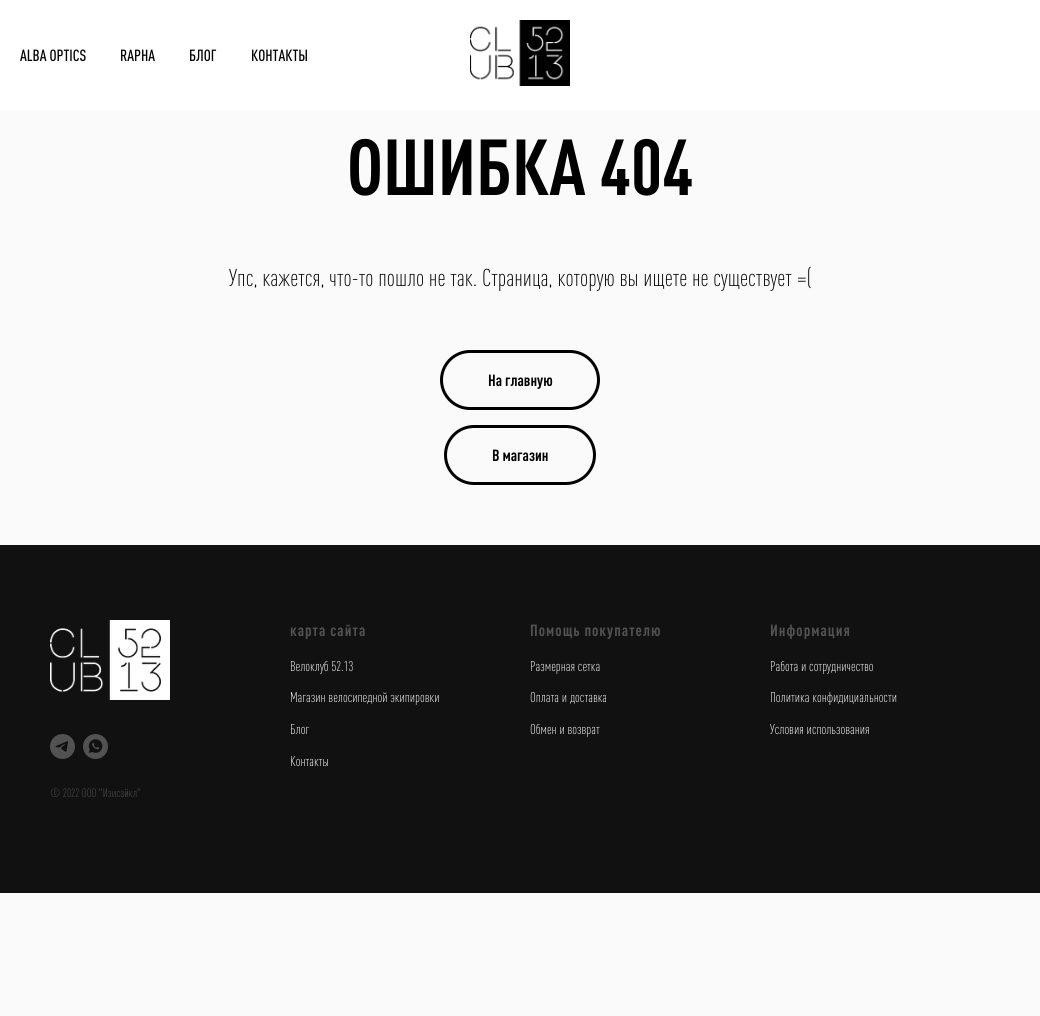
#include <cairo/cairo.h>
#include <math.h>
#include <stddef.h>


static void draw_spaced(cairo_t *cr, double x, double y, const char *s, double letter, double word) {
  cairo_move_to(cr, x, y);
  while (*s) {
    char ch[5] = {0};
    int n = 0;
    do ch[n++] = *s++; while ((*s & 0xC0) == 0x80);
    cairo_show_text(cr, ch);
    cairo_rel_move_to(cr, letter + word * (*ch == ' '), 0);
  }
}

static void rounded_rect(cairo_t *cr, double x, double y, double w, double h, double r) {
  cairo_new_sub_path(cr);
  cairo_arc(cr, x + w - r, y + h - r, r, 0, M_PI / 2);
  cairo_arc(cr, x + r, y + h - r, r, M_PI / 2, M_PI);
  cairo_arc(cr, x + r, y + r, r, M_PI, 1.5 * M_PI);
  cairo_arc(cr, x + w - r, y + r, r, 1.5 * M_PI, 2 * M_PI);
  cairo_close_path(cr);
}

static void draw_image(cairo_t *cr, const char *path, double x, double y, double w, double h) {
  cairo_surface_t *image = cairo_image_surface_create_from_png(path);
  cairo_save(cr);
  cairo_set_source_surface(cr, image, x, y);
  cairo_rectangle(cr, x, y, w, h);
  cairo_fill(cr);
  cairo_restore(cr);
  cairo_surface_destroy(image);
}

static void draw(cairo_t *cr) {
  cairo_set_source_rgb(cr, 250 / 255.0, 250 / 255.0, 250 / 255.0);
  cairo_paint(cr);
  cairo_set_source_rgb(cr, 1, 1, 1);
  cairo_rectangle(cr, 0, 0, 1040, 110);
  cairo_fill(cr);
  draw_image(cr, "images/1.png", 470, 20, 100, 66);
  rounded_rect(cr, 441.5, 351.5, 157, 57, 28.5);
  cairo_set_source_rgb(cr, 0, 0, 0);
  cairo_set_line_width(cr, 3);
  cairo_stroke(cr);
  rounded_rect(cr, 445.5, 426.5, 149, 57, 28.5);
  cairo_stroke(cr);
  cairo_set_source_rgb(cr, 17 / 255.0, 17 / 255.0, 17 / 255.0);
  cairo_rectangle(cr, 0, 545, 1040, 348);
  cairo_fill(cr);
  draw_image(cr, "images/2.png", 50, 620, 120, 80);
  draw_image(cr, "images/3.png", 50, 734, 25, 25);
  draw_image(cr, "images/4.png", 83, 734, 25, 25);
  cairo_select_font_face(cr, "DIN Medium", CAIRO_FONT_SLANT_NORMAL, CAIRO_FONT_WEIGHT_NORMAL);
  cairo_set_font_size(cr, 16);
  cairo_set_source_rgb(cr, 0, 0, 0);
  cairo_move_to(cr, 20, 61);
  cairo_show_text(cr, "ALBA OPTICS");
  cairo_move_to(cr, 120, 61);
  cairo_show_text(cr, "RAPHA");
  cairo_move_to(cr, 189, 61);
  cairo_show_text(cr, "БЛОГ");
  cairo_move_to(cr, 251, 61);
  cairo_show_text(cr, "КОНТАКТЫ");
  cairo_select_font_face(cr, "DIN", CAIRO_FONT_SLANT_NORMAL, CAIRO_FONT_WEIGHT_BOLD);
  cairo_set_font_size(cr, 78);
  cairo_move_to(cr, 347, 195);
  cairo_show_text(cr, "ОШИБКА 404");
  cairo_select_font_face(cr, "DIN Light", CAIRO_FONT_SLANT_NORMAL, CAIRO_FONT_WEIGHT_NORMAL);
  cairo_set_font_size(cr, 24);
  cairo_move_to(cr, 229, 286);
  cairo_show_text(cr, "Упс, кажется, что-то пошло не так. Страница, которую вы ищете не существует =(");
  cairo_select_font_face(cr, "DIN", CAIRO_FONT_SLANT_NORMAL, CAIRO_FONT_WEIGHT_BOLD);
  cairo_set_font_size(cr, 16);
  cairo_move_to(cr, 488, 386);
  cairo_show_text(cr, "На главную");
  cairo_move_to(cr, 492, 461);
  cairo_show_text(cr, "В магазин");
  cairo_set_source_rgb(cr, 82 / 255.0, 82 / 255.0, 82 / 255.0);
  draw_spaced(cr, 290, 636, "карта сайта", 1, 0);
  cairo_select_font_face(cr, "DIN Light", CAIRO_FONT_SLANT_NORMAL, CAIRO_FONT_WEIGHT_NORMAL);
  cairo_set_font_size(cr, 14);
  cairo_set_source_rgb(cr, 1, 1, 1);
  cairo_move_to(cr, 290, 671);
  cairo_show_text(cr, "Велоклуб 52.13");
  cairo_move_to(cr, 290, 702);
  cairo_show_text(cr, "Магазин велосипедной экипировки");
  cairo_move_to(cr, 290, 734);
  cairo_show_text(cr, "Блог");
  cairo_move_to(cr, 290, 766);
  cairo_show_text(cr, "Контакты");
  cairo_select_font_face(cr, "DIN", CAIRO_FONT_SLANT_NORMAL, CAIRO_FONT_WEIGHT_BOLD);
  cairo_set_font_size(cr, 16);
  cairo_set_source_rgb(cr, 82 / 255.0, 82 / 255.0, 82 / 255.0);
  draw_spaced(cr, 530, 636, "Помощь покупателю", 1, 0);
  cairo_select_font_face(cr, "DIN Light", CAIRO_FONT_SLANT_NORMAL, CAIRO_FONT_WEIGHT_NORMAL);
  cairo_set_font_size(cr, 14);
  cairo_set_source_rgb(cr, 1, 1, 1);
  cairo_move_to(cr, 530, 671);
  cairo_show_text(cr, "Размерная сетка");
  cairo_move_to(cr, 530, 702);
  cairo_show_text(cr, "Оплата и доставка");
  cairo_move_to(cr, 530, 734);
  cairo_show_text(cr, "Обмен и возврат");
  cairo_select_font_face(cr, "DIN", CAIRO_FONT_SLANT_NORMAL, CAIRO_FONT_WEIGHT_BOLD);
  cairo_set_font_size(cr, 16);
  cairo_set_source_rgb(cr, 82 / 255.0, 82 / 255.0, 82 / 255.0);
  draw_spaced(cr, 770, 636, "Информация", 1, 0);
  cairo_select_font_face(cr, "DIN Light", CAIRO_FONT_SLANT_NORMAL, CAIRO_FONT_WEIGHT_NORMAL);
  cairo_set_font_size(cr, 14);
  cairo_set_source_rgb(cr, 1, 1, 1);
  cairo_move_to(cr, 770, 671);
  cairo_show_text(cr, "Работа и сотрудничество");
  cairo_move_to(cr, 770, 702);
  cairo_show_text(cr, "Политика конфидициальности");
  cairo_move_to(cr, 770, 734);
  cairo_show_text(cr, "Условия использования");
  cairo_set_font_size(cr, 12);
  cairo_set_source_rgb(cr, 82 / 255.0, 82 / 255.0, 82 / 255.0);
  cairo_move_to(cr, 50, 797);
  cairo_show_text(cr, "© 2022 ООО \"Изисайкл\"");
}

int main(void) {
  cairo_surface_t *surface = cairo_image_surface_create(CAIRO_FORMAT_RGB24, 1040, 1016);
  cairo_t *cr = cairo_create(surface);
  cairo_font_options_t *options = cairo_font_options_create();
  cairo_font_options_set_hint_metrics(options, CAIRO_HINT_METRICS_OFF);
  cairo_font_options_set_hint_style(options, CAIRO_HINT_STYLE_NONE);
  cairo_set_font_options(cr, options);
  cairo_set_miter_limit(cr, 4);
  draw(cr);
  cairo_surface_write_to_png(surface, "out.png");
  cairo_font_options_destroy(options);
  cairo_destroy(cr);
  cairo_surface_destroy(surface);
  return 0;
}
